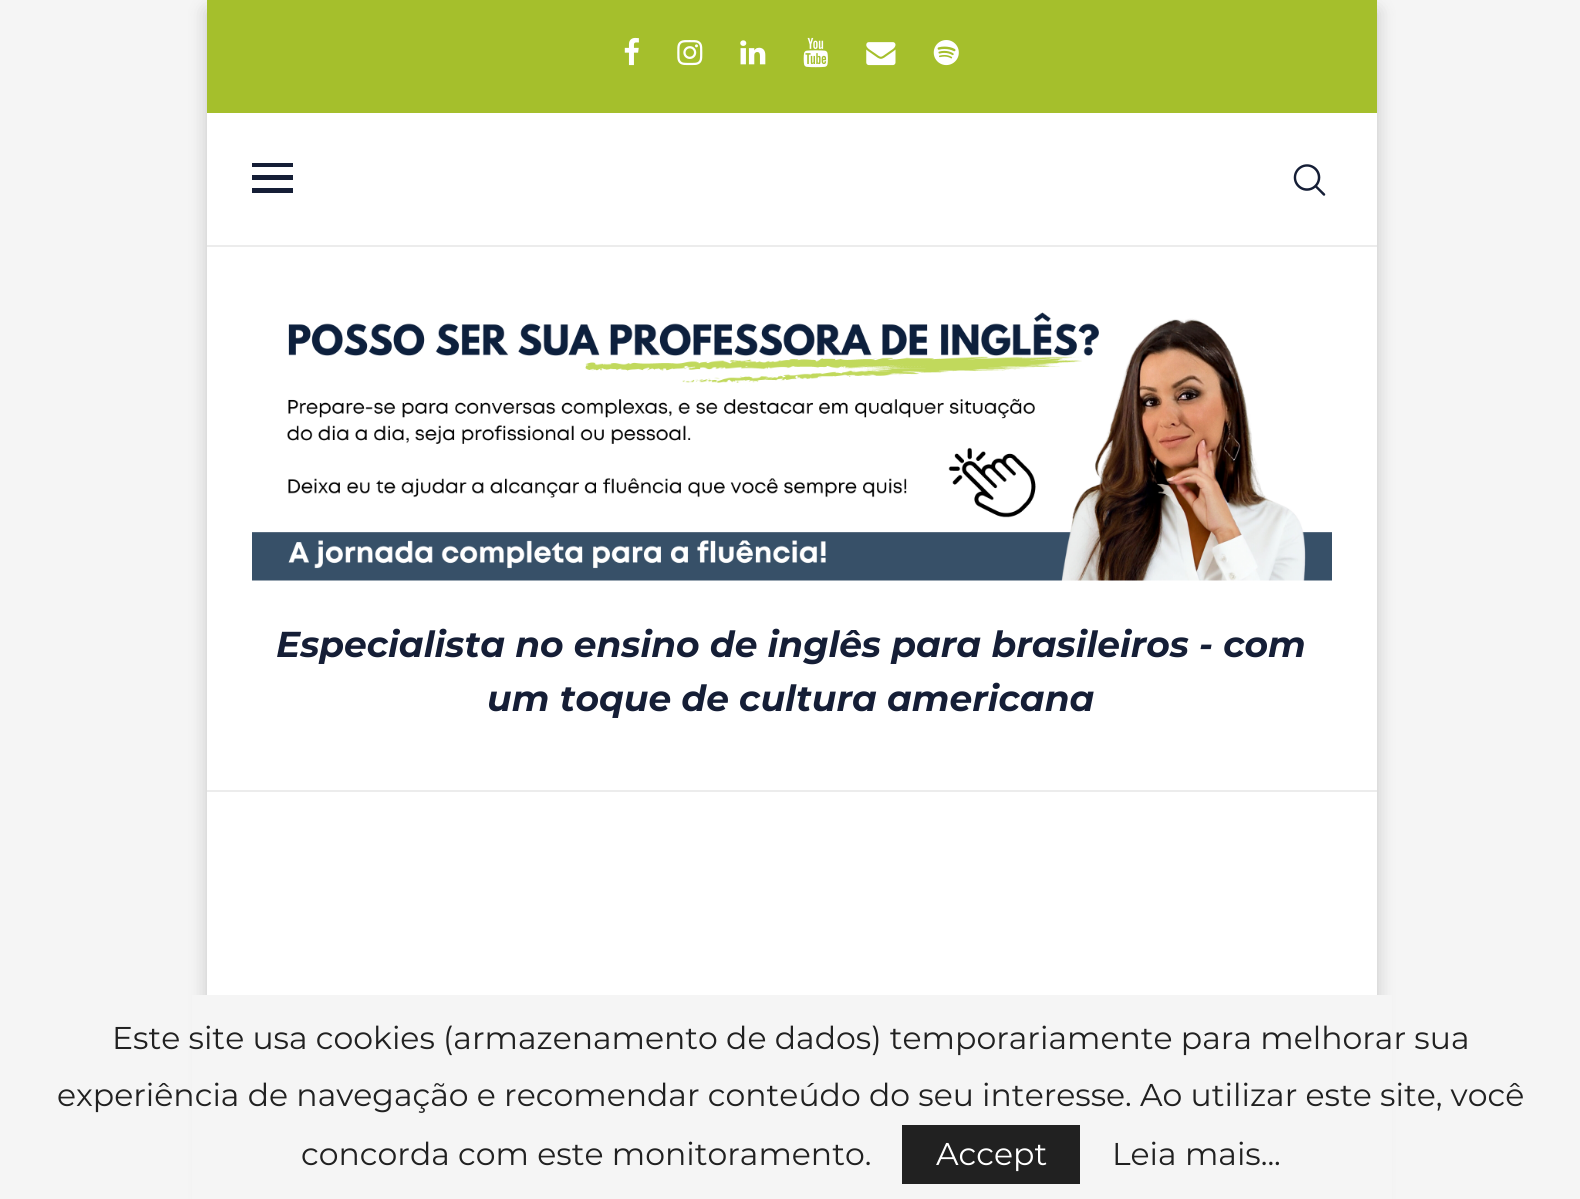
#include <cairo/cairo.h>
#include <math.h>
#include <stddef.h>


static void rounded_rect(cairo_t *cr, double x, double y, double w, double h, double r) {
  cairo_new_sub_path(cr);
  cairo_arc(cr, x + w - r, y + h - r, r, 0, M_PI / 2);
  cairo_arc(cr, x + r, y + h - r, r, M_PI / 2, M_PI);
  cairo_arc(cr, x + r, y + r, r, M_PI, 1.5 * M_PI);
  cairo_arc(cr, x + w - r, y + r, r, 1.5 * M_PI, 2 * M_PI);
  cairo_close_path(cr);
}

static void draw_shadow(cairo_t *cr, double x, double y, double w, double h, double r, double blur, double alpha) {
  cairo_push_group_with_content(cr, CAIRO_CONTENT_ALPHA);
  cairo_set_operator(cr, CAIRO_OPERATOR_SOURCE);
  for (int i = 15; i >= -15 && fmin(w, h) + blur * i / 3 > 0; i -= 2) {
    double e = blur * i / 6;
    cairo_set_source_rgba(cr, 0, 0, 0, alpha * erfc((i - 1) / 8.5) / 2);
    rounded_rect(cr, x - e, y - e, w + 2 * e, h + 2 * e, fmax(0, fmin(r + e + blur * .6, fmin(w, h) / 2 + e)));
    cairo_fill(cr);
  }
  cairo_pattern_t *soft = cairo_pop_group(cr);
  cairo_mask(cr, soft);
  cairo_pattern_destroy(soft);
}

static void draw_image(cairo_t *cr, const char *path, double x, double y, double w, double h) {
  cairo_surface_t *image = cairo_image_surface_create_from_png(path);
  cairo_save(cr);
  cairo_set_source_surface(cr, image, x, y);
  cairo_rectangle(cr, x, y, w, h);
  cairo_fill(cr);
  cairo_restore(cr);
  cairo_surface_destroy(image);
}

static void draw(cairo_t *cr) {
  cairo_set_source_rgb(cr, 245 / 255.0, 245 / 255.0, 245 / 255.0);
  cairo_paint(cr);
  cairo_set_source_rgb(cr, 0, 0, 0);
  draw_shadow(cr, 207, 11, 1170, 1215, 0, 9, 0.2);
  cairo_set_source_rgb(cr, 1, 1, 1);
  cairo_rectangle(cr, 207, 113, 1170, 882);
  cairo_fill(cr);
  cairo_set_source_rgb(cr, 165 / 255.0, 191 / 255.0, 44 / 255.0);
  cairo_rectangle(cr, 207, 0, 1170, 113);
  cairo_fill(cr);
  draw_image(cr, "images/1.png", 624, 37, 15, 29);
  draw_image(cr, "images/2.png", 677, 40, 26, 26);
  draw_image(cr, "images/3.png", 740, 40, 26, 25);
  draw_image(cr, "images/4.png", 803, 37, 25, 31);
  draw_image(cr, "images/5.png", 866, 42, 30, 24);
  draw_image(cr, "images/6.png", 933, 40, 26, 26);
  cairo_set_source_rgb(cr, 236 / 255.0, 236 / 255.0, 236 / 255.0);
  cairo_rectangle(cr, 207, 245, 1170, 2);
  cairo_fill(cr);
  cairo_set_source_rgb(cr, 21 / 255.0, 30 / 255.0, 54 / 255.0);
  cairo_rectangle(cr, 252, 163, 41, 4);
  cairo_fill(cr);
  cairo_rectangle(cr, 252, 175, 41, 5);
  cairo_fill(cr);
  cairo_rectangle(cr, 252, 188, 41, 5);
  cairo_fill(cr);
  draw_image(cr, "images/7.png", 1293, 164, 33, 32);
  cairo_set_source_rgb(cr, 236 / 255.0, 236 / 255.0, 236 / 255.0);
  cairo_rectangle(cr, 207, 790, 1170, 2);
  cairo_fill(cr);
  draw_image(cr, "images/8.png", 252, 312, 1080, 269);
  cairo_set_source_rgb(cr, 245 / 255.0, 245 / 255.0, 245 / 255.0);
  cairo_rectangle(cr, 192, 995, 1200, 204);
  cairo_fill(cr);
  cairo_set_source_rgb(cr, 33 / 255.0, 33 / 255.0, 33 / 255.0);
  cairo_rectangle(cr, 902, 1125, 178, 59);
  cairo_fill(cr);
  cairo_select_font_face(cr, "Montserrat", CAIRO_FONT_SLANT_ITALIC, CAIRO_FONT_WEIGHT_BOLD);
  cairo_set_font_size(cr, 36);
  cairo_set_source_rgb(cr, 21 / 255.0, 30 / 255.0, 54 / 255.0);
  cairo_move_to(cr, 276, 657);
  cairo_show_text(cr, "Especialista no ensino de inglês para brasileiros - com");
  cairo_move_to(cr, 487, 711);
  cairo_show_text(cr, "um toque de cultura americana");
  cairo_select_font_face(cr, "Montserrat", CAIRO_FONT_SLANT_NORMAL, CAIRO_FONT_WEIGHT_NORMAL);
  cairo_set_font_size(cr, 31.5);
  cairo_set_source_rgb(cr, 33 / 255.0, 33 / 255.0, 33 / 255.0);
  cairo_move_to(cr, 112, 1049);
  cairo_show_text(cr, "Este site usa cookies (armazenamento de dados) temporariamente para melhorar sua");
  cairo_move_to(cr, 57, 1106);
  cairo_show_text(cr, "experiência de navegação e recomendar conteúdo do seu interesse. Ao utilizar este site, você");
  cairo_move_to(cr, 301, 1165);
  cairo_show_text(cr, "concorda com este monitoramento.");
  cairo_set_source_rgb(cr, 1, 1, 1);
  cairo_move_to(cr, 936, 1165);
  cairo_show_text(cr, "Accept");
  cairo_set_source_rgb(cr, 33 / 255.0, 33 / 255.0, 33 / 255.0);
  cairo_move_to(cr, 1112, 1165);
  cairo_show_text(cr, "Leia mais...");
}

int main(void) {
  cairo_surface_t *surface = cairo_image_surface_create(CAIRO_FORMAT_RGB24, 1580, 1199);
  cairo_t *cr = cairo_create(surface);
  cairo_font_options_t *options = cairo_font_options_create();
  cairo_font_options_set_hint_metrics(options, CAIRO_HINT_METRICS_OFF);
  cairo_font_options_set_hint_style(options, CAIRO_HINT_STYLE_NONE);
  cairo_set_font_options(cr, options);
  cairo_set_miter_limit(cr, 4);
  draw(cr);
  cairo_surface_write_to_png(surface, "out.png");
  cairo_font_options_destroy(options);
  cairo_destroy(cr);
  cairo_surface_destroy(surface);
  return 0;
}
